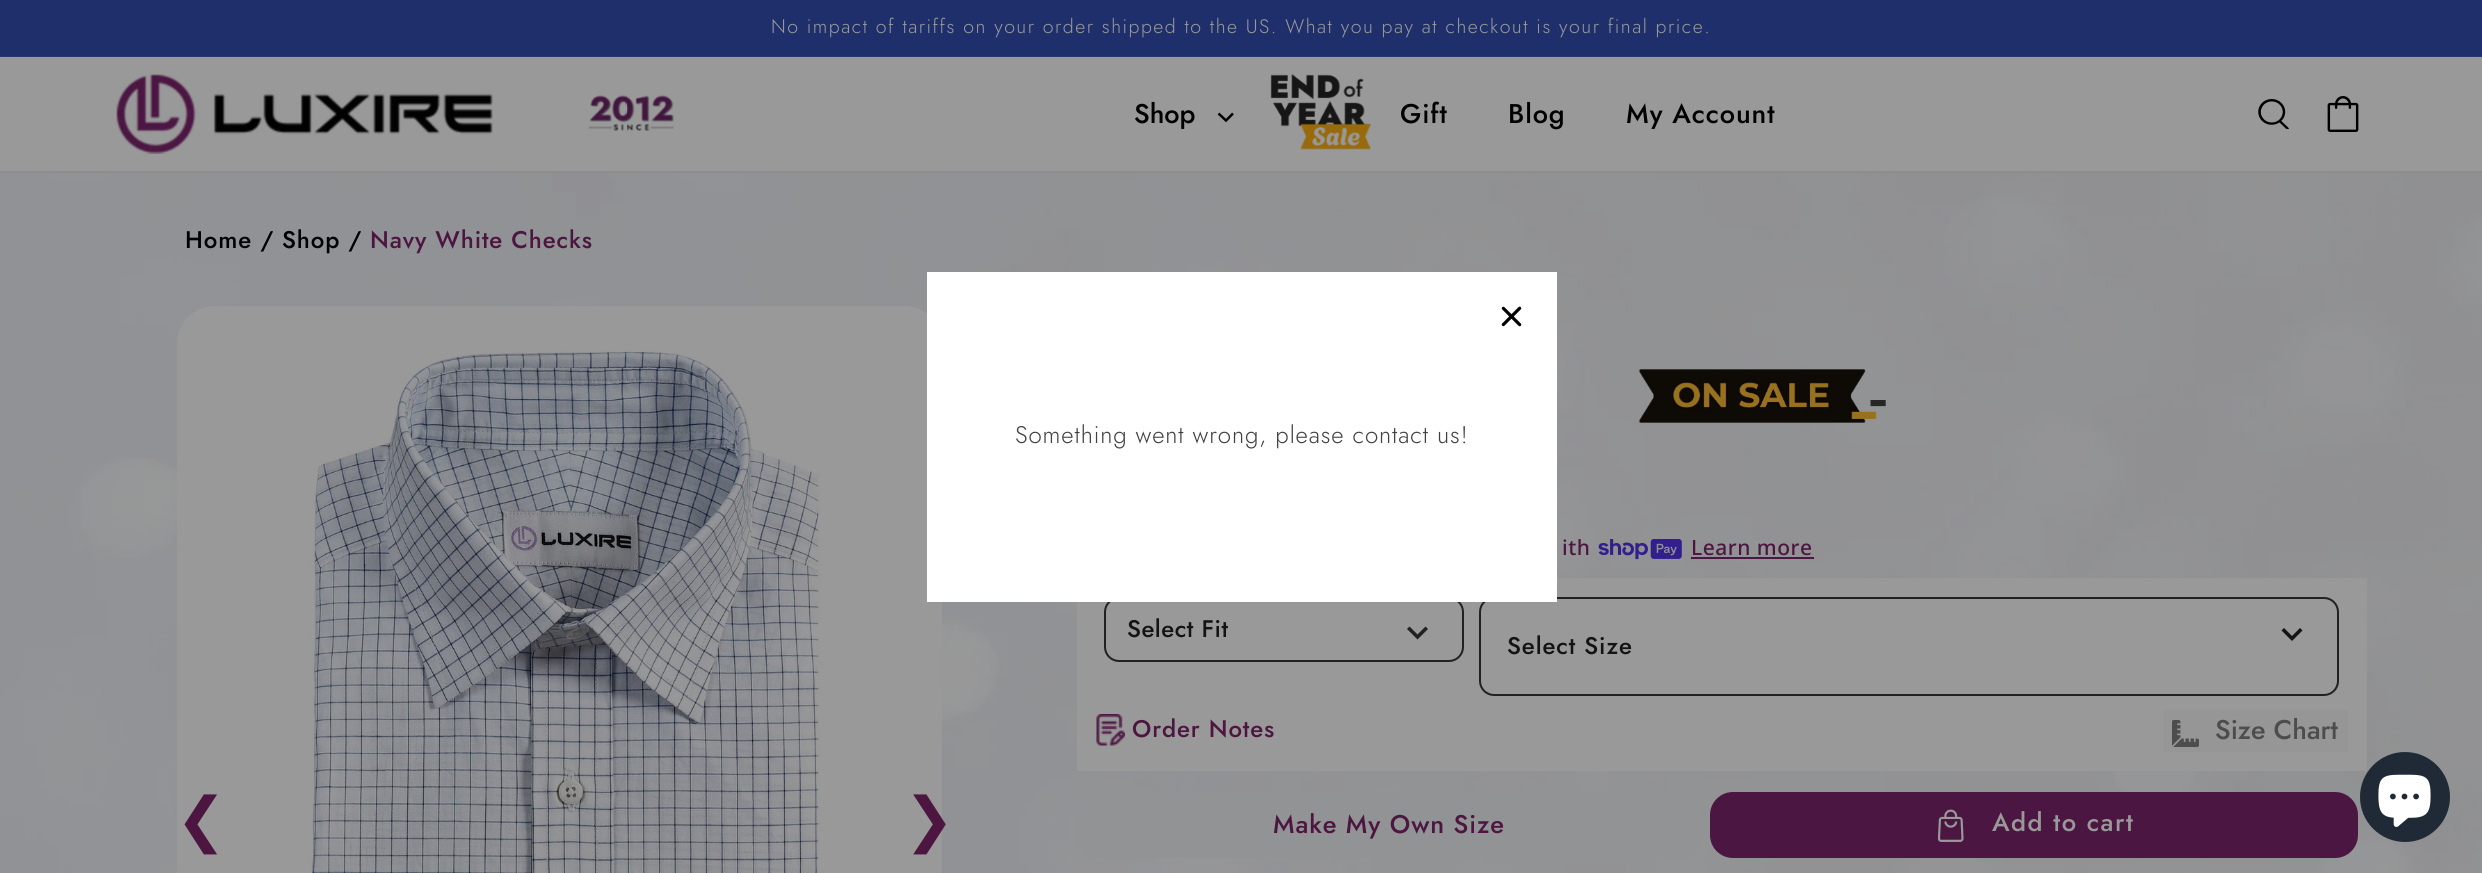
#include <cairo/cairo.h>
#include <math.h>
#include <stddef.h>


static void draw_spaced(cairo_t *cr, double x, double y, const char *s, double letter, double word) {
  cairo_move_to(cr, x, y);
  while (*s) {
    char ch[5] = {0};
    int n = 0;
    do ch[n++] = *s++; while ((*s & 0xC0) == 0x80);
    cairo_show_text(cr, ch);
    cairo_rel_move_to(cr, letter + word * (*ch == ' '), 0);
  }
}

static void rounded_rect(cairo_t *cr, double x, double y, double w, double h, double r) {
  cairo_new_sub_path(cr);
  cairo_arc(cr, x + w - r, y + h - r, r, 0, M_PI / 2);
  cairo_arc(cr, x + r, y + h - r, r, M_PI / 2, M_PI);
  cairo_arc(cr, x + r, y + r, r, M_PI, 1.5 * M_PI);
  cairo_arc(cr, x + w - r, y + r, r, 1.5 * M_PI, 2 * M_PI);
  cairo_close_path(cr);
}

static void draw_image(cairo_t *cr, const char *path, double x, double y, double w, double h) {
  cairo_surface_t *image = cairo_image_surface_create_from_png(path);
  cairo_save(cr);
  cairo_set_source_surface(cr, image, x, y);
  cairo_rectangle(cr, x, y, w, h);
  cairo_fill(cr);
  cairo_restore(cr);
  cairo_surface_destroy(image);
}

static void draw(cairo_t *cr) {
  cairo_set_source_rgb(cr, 153 / 255.0, 153 / 255.0, 153 / 255.0);
  cairo_paint(cr);
  draw_image(cr, "images/1.png", 0, 173, 2482, 700);
  cairo_set_source_rgb(cr, 31 / 255.0, 47 / 255.0, 108 / 255.0);
  cairo_rectangle(cr, 0, 0, 2482, 57);
  cairo_fill(cr);
  cairo_set_source_rgba(cr, 153 / 255.0, 153 / 255.0, 153 / 255.0, 0.08);
  cairo_rectangle(cr, 0, 56, 2482, 1);
  cairo_fill(cr);
  cairo_set_source_rgb(cr, 141 / 255.0, 141 / 255.0, 141 / 255.0);
  cairo_rectangle(cr, 0, 171, 2482, 2);
  cairo_fill(cr);
  draw_image(cr, "images/2.png", 116, 74, 377, 80);
  draw_image(cr, "images/3.png", 588, 95, 86, 36);
  cairo_new_path(cr);
  cairo_move_to(cr, 1226, 120.5);
  cairo_line_to(cr, 1218.5, 113.5);
  cairo_line_to(cr, 1226, 120.5);
  cairo_line_to(cr, 1233, 113.5);
  cairo_set_source_rgb(cr, 0, 0, 0);
  cairo_set_line_width(cr, 2.5);
  cairo_stroke(cr);
  draw_image(cr, "images/4.png", 1270, 74, 101, 76);
  draw_image(cr, "images/5.png", 2258, 99, 31, 30);
  draw_image(cr, "images/6.png", 2327, 96, 32, 36);
  draw_image(cr, "images/7.png", 177, 306, 765, 567);
  draw_image(cr, "images/8.png", 1639, 369, 247, 54);
  draw_image(cr, "images/9.png", 1598, 539, 84, 21);
  cairo_set_source_rgb(cr, 76 / 255.0, 22 / 255.0, 66 / 255.0);
  cairo_rectangle(cr, 1691, 557, 123, 2);
  cairo_fill(cr);
  cairo_set_source_rgb(cr, 153 / 255.0, 153 / 255.0, 153 / 255.0);
  cairo_rectangle(cr, 1077, 578, 1290, 193);
  cairo_fill(cr);
  rounded_rect(cr, 1105, 598, 358, 63, 14);
  cairo_set_source_rgb(cr, 33 / 255.0, 33 / 255.0, 33 / 255.0);
  cairo_set_line_width(cr, 2);
  cairo_stroke(cr);
  cairo_new_path(cr);
  cairo_move_to(cr, 1407, 629);
  cairo_line_to(cr, 1409.5, 626.5);
  cairo_line_to(cr, 1417.5, 634.5);
  cairo_line_to(cr, 1425.5, 626.5);
  cairo_line_to(cr, 1428, 629);
  cairo_line_to(cr, 1417.5, 639.5);
  cairo_close_path(cr);
  cairo_fill(cr);
  rounded_rect(cr, 1480, 598, 858, 97, 14);
  cairo_stroke(cr);
  cairo_set_source_rgb(cr, 20 / 255.0, 20 / 255.0, 20 / 255.0);
  cairo_new_path(cr);
  cairo_move_to(cr, 2281.5, 630.5);
  cairo_line_to(cr, 2284, 628);
  cairo_line_to(cr, 2292, 636);
  cairo_line_to(cr, 2300, 628);
  cairo_line_to(cr, 2302.5, 630.5);
  cairo_line_to(cr, 2292, 641);
  cairo_close_path(cr);
  cairo_fill(cr);
  draw_image(cr, "images/10.png", 1096, 714, 29, 32);
  cairo_set_source_rgb(cr, 150 / 255.0, 150 / 255.0, 150 / 255.0);
  cairo_rectangle(cr, 2163, 710, 185, 42);
  cairo_fill(cr);
  draw_image(cr, "images/11.png", 2172, 720, 27, 27);
  cairo_set_source_rgb(cr, 146 / 255.0, 147 / 255.0, 148 / 255.0);
  rounded_rect(cr, 1077, 792, 624, 66, 18);
  cairo_fill(cr);
  cairo_set_source_rgb(cr, 76 / 255.0, 22 / 255.0, 66 / 255.0);
  rounded_rect(cr, 1710, 792, 648, 66, 23);
  cairo_fill(cr);
  draw_image(cr, "images/12.png", 1937, 809, 27, 33);
  cairo_set_source_rgb(cr, 1, 1, 1);
  cairo_rectangle(cr, 927, 272, 630, 330);
  cairo_fill(cr);
  draw_image(cr, "images/13.png", 1501, 306, 21, 21);
  cairo_set_source_rgb(cr, 32 / 255.0, 42 / 255.0, 54 / 255.0);
  cairo_arc(cr, 2405, 797, 45, 0, 2 * M_PI);
  cairo_fill(cr);
  draw_image(cr, "images/14.png", 2378, 774, 53, 53);
  cairo_select_font_face(cr, "Jost Light", CAIRO_FONT_SLANT_NORMAL, CAIRO_FONT_WEIGHT_NORMAL);
  cairo_set_font_size(cr, 19.5);
  cairo_set_source_rgb(cr, 153 / 255.0, 153 / 255.0, 153 / 255.0);
  draw_spaced(cr, 771, 33, "No impact of tariffs on your order shipped to the US. What you pay at checkout is your final price.", 1.5, 0);
  cairo_select_font_face(cr, "Jost Medium", CAIRO_FONT_SLANT_NORMAL, CAIRO_FONT_WEIGHT_NORMAL);
  cairo_set_font_size(cr, 27);
  cairo_set_source_rgb(cr, 0, 0, 0);
  cairo_move_to(cr, 1134, 123);
  cairo_show_text(cr, "Shop");
  draw_spaced(cr, 1400, 123, "Gift", 0.9, 0);
  draw_spaced(cr, 1508, 123, "Blog", 0.9, 0);
  draw_spaced(cr, 1626, 123, "My Account", 0.9, 0);
  cairo_set_font_size(cr, 24);
  draw_spaced(cr, 185, 248, "Home /", 0.9, 0);
  draw_spaced(cr, 282, 248, "Shop /", 0.9, 0);
  cairo_set_source_rgb(cr, 76 / 255.0, 22 / 255.0, 65 / 255.0);
  draw_spaced(cr, 370, 248, "Navy White Checks", 0.9, 0);
  cairo_select_font_face(cr, "DejaVu Sans", CAIRO_FONT_SLANT_NORMAL, CAIRO_FONT_WEIGHT_NORMAL);
  cairo_set_font_size(cr, 60);
  cairo_move_to(cr, 176, 840);
  cairo_show_text(cr, "❮");
  cairo_move_to(cr, 904, 840);
  cairo_show_text(cr, "❯");
  cairo_select_font_face(cr, "Noto Sans Medium", CAIRO_FONT_SLANT_NORMAL, CAIRO_FONT_WEIGHT_NORMAL);
  cairo_set_font_size(cr, 21);
  draw_spaced(cr, 1562, 555, "ith", 0.5, 0);
  draw_spaced(cr, 1691, 555, "Learn more", 0.5, 0);
  cairo_select_font_face(cr, "Jost Medium", CAIRO_FONT_SLANT_NORMAL, CAIRO_FONT_WEIGHT_NORMAL);
  cairo_set_font_size(cr, 24);
  cairo_set_source_rgb(cr, 20 / 255.0, 20 / 255.0, 20 / 255.0);
  draw_spaced(cr, 1127, 637, "Select Fit", 0.5, 0);
  draw_spaced(cr, 1507, 654, "Select Size", 0.9, 0);
  cairo_set_source_rgb(cr, 76 / 255.0, 22 / 255.0, 65 / 255.0);
  draw_spaced(cr, 1132, 737, "Order Notes", 0.9, 0);
  cairo_set_font_size(cr, 27);
  cairo_set_source_rgb(cr, 77 / 255.0, 77 / 255.0, 77 / 255.0);
  cairo_move_to(cr, 2215, 739);
  cairo_show_text(cr, "Size Chart");
  cairo_set_font_size(cr, 25.5);
  cairo_set_source_rgb(cr, 76 / 255.0, 22 / 255.0, 65 / 255.0);
  draw_spaced(cr, 1273, 833, "Make My Own Size", 0.9, 0);
  cairo_set_source_rgb(cr, 153 / 255.0, 153 / 255.0, 153 / 255.0);
  draw_spaced(cr, 1992, 831, "Add to cart", 1.5, 0);
  cairo_select_font_face(cr, "Jost Light", CAIRO_FONT_SLANT_NORMAL, CAIRO_FONT_WEIGHT_NORMAL);
  cairo_set_font_size(cr, 24);
  cairo_set_source_rgb(cr, 64 / 255.0, 64 / 255.0, 64 / 255.0);
  draw_spaced(cr, 1015, 443, "Something went wrong, please contact us!", 0.9, 0);
}

int main(void) {
  cairo_surface_t *surface = cairo_image_surface_create(CAIRO_FORMAT_RGB24, 2482, 873);
  cairo_t *cr = cairo_create(surface);
  cairo_font_options_t *options = cairo_font_options_create();
  cairo_font_options_set_hint_metrics(options, CAIRO_HINT_METRICS_OFF);
  cairo_font_options_set_hint_style(options, CAIRO_HINT_STYLE_NONE);
  cairo_set_font_options(cr, options);
  cairo_set_miter_limit(cr, 4);
  draw(cr);
  cairo_surface_write_to_png(surface, "out.png");
  cairo_font_options_destroy(options);
  cairo_destroy(cr);
  cairo_surface_destroy(surface);
  return 0;
}
